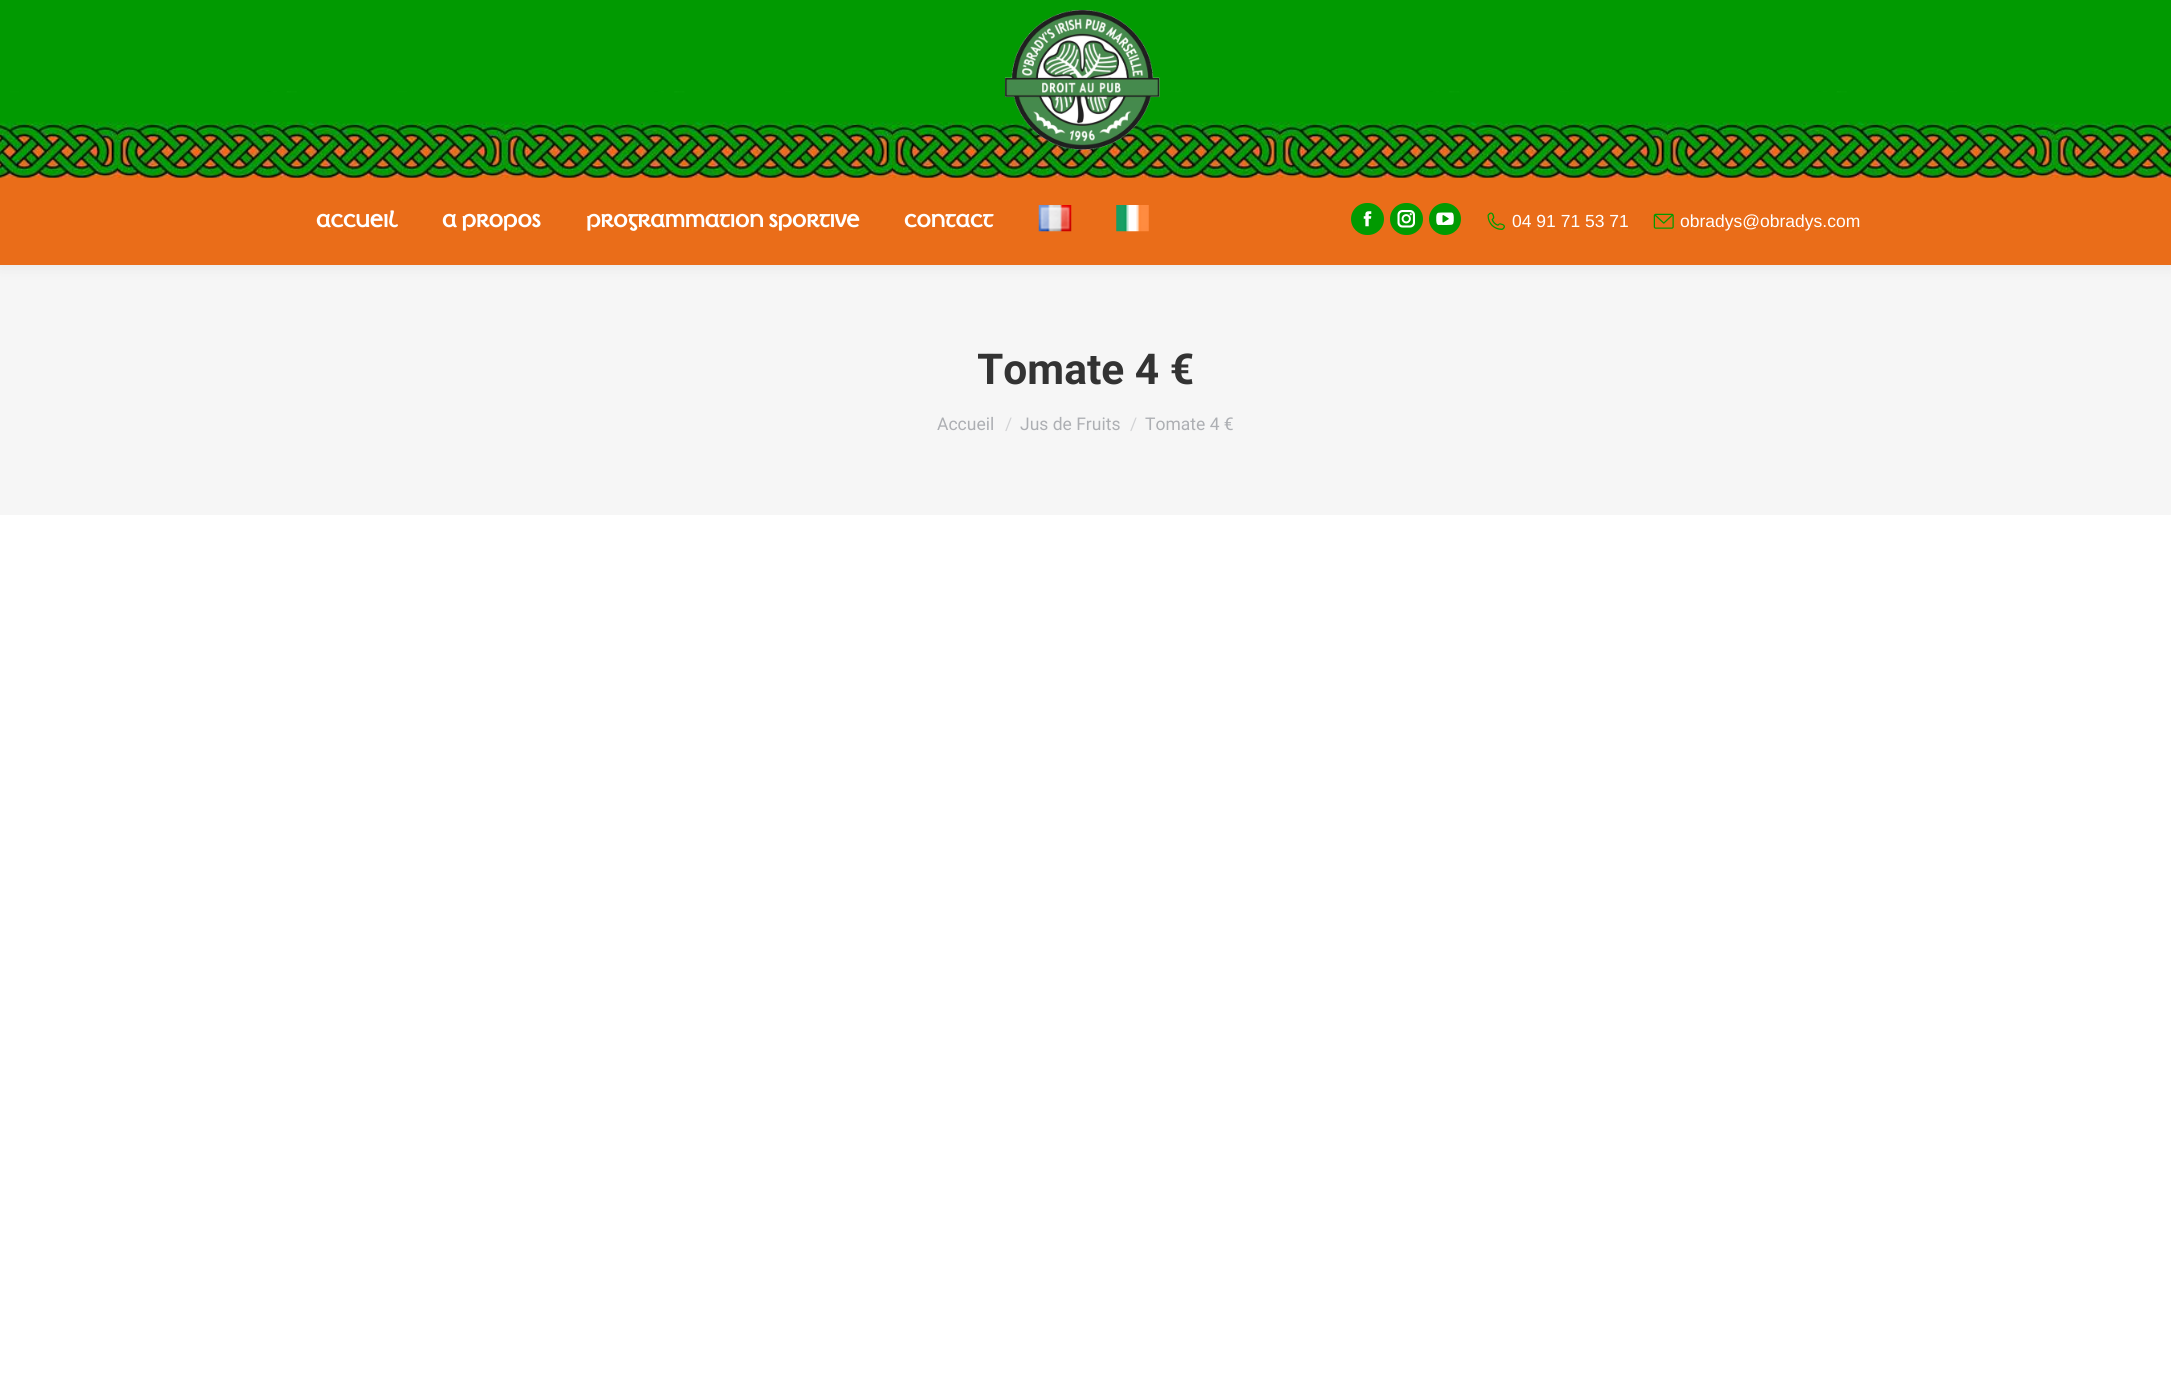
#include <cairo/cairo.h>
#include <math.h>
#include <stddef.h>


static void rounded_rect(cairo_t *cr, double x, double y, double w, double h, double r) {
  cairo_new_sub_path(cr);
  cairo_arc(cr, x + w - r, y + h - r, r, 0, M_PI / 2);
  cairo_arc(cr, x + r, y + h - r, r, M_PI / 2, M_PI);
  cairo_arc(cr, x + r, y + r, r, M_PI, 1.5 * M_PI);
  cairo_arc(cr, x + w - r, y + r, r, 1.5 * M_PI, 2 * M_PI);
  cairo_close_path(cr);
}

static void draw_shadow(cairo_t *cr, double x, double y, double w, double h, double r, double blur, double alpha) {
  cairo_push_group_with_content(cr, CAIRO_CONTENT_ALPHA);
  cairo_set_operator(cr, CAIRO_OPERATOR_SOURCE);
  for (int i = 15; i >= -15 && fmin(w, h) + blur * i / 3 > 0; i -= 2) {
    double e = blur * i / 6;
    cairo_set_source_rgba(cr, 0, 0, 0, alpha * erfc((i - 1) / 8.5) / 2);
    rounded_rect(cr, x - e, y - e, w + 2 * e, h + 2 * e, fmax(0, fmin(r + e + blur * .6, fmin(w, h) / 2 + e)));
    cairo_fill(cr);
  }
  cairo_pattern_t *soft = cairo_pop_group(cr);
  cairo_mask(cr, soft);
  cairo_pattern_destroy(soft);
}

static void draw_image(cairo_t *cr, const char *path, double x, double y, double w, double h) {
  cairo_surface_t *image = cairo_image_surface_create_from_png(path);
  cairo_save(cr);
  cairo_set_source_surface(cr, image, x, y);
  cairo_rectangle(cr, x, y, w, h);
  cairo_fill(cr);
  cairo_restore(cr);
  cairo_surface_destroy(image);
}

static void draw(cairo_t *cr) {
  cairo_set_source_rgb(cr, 1, 1, 1);
  cairo_paint(cr);
  cairo_set_source_rgb(cr, 246 / 255.0, 246 / 255.0, 246 / 255.0);
  cairo_rectangle(cr, 0, 265, 2171, 250);
  cairo_fill(cr);
  cairo_set_source_rgb(cr, 0, 0, 0);
  draw_shadow(cr, -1, -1, 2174, 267, 0, 9.5, 0.07);
  cairo_set_source_rgb(cr, 1 / 255.0, 154 / 255.0, 1 / 255.0);
  cairo_rectangle(cr, 0, 0, 2171, 91);
  cairo_fill(cr);
  draw_image(cr, "images/1.png", 0, 91, 2171, 87);
  draw_image(cr, "images/2.png", 1005, 10, 155, 140);
  cairo_set_source_rgb(cr, 234 / 255.0, 109 / 255.0, 25 / 255.0);
  cairo_rectangle(cr, 0, 178, 2171, 87);
  cairo_fill(cr);
  draw_image(cr, "images/3.png", 1038, 205, 34, 27);
  draw_image(cr, "images/4.png", 1116, 205, 33, 27);
  cairo_set_source_rgb(cr, 1 / 255.0, 154 / 255.0, 1 / 255.0);
  rounded_rect(cr, 1351, 203, 33, 32, 16);
  cairo_fill(cr);
  draw_image(cr, "images/5.png", 1363, 211, 9, 16);
  rounded_rect(cr, 1390, 203, 33, 32, 16);
  cairo_fill(cr);
  draw_image(cr, "images/6.png", 1397, 210, 18, 18);
  cairo_arc(cr, 1445, 219, 16, 0, 2 * M_PI);
  cairo_fill(cr);
  draw_image(cr, "images/7.png", 1436, 212, 18, 13);
  draw_image(cr, "images/8.png", 1487, 212, 18, 18);
  draw_image(cr, "images/9.png", 1653, 213, 21, 16);
  cairo_select_font_face(cr, "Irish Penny", CAIRO_FONT_SLANT_NORMAL, CAIRO_FONT_WEIGHT_BOLD);
  cairo_set_font_size(cr, 20);
  cairo_set_source_rgb(cr, 1, 1, 1);
  cairo_move_to(cr, 316, 227);
  cairo_show_text(cr, "ACCUEIL");
  cairo_move_to(cr, 442, 227);
  cairo_show_text(cr, "A PROPOS");
  cairo_move_to(cr, 586, 227);
  cairo_show_text(cr, "PROGRAMMATION SPORTIVE");
  cairo_move_to(cr, 904, 227);
  cairo_show_text(cr, "CONTACT");
  cairo_select_font_face(cr, "Liberation Sans", CAIRO_FONT_SLANT_NORMAL, CAIRO_FONT_WEIGHT_NORMAL);
  cairo_set_font_size(cr, 17.5);
  cairo_move_to(cr, 1512, 227);
  cairo_show_text(cr, "04 91 71 53 71");
  cairo_move_to(cr, 1680, 227);
  cairo_show_text(cr, "obradys@obradys.com");
  cairo_save(cr);
  cairo_rectangle(cr, 978, 341, 216, 55);
  cairo_clip(cr);
  cairo_select_font_face(cr, "Roboto", CAIRO_FONT_SLANT_NORMAL, CAIRO_FONT_WEIGHT_BOLD);
  cairo_set_font_size(cr, 42.5);
  cairo_set_source_rgb(cr, 51 / 255.0, 51 / 255.0, 51 / 255.0);
  cairo_move_to(cr, 977, 384);
  cairo_show_text(cr, "Tomate 4 €");
  cairo_restore(cr);
  cairo_select_font_face(cr, "Roboto", CAIRO_FONT_SLANT_NORMAL, CAIRO_FONT_WEIGHT_NORMAL);
  cairo_set_source_rgb(cr, 173 / 255.0, 175 / 255.0, 179 / 255.0);
  cairo_move_to(cr, 937, 430);
  cairo_show_text(cr, "Accueil");
  cairo_set_source_rgb(cr, 210 / 255.0, 211 / 255.0, 213 / 255.0);
  cairo_move_to(cr, 1005, 430);
  cairo_show_text(cr, "/");
  cairo_set_source_rgb(cr, 173 / 255.0, 175 / 255.0, 179 / 255.0);
  cairo_move_to(cr, 1020, 430);
  cairo_show_text(cr, "Jus de Fruits");
  cairo_set_source_rgb(cr, 210 / 255.0, 211 / 255.0, 213 / 255.0);
  cairo_move_to(cr, 1130, 430);
  cairo_show_text(cr, "/");
  cairo_set_source_rgb(cr, 173 / 255.0, 175 / 255.0, 179 / 255.0);
  cairo_move_to(cr, 1145, 430);
  cairo_show_text(cr, "Tomate 4 €");
}

int main(void) {
  cairo_surface_t *surface = cairo_image_surface_create(CAIRO_FORMAT_RGB24, 2171, 1387);
  cairo_t *cr = cairo_create(surface);
  cairo_font_options_t *options = cairo_font_options_create();
  cairo_font_options_set_hint_metrics(options, CAIRO_HINT_METRICS_OFF);
  cairo_font_options_set_hint_style(options, CAIRO_HINT_STYLE_NONE);
  cairo_set_font_options(cr, options);
  cairo_set_miter_limit(cr, 4);
  draw(cr);
  cairo_surface_write_to_png(surface, "out.png");
  cairo_font_options_destroy(options);
  cairo_destroy(cr);
  cairo_surface_destroy(surface);
  return 0;
}
